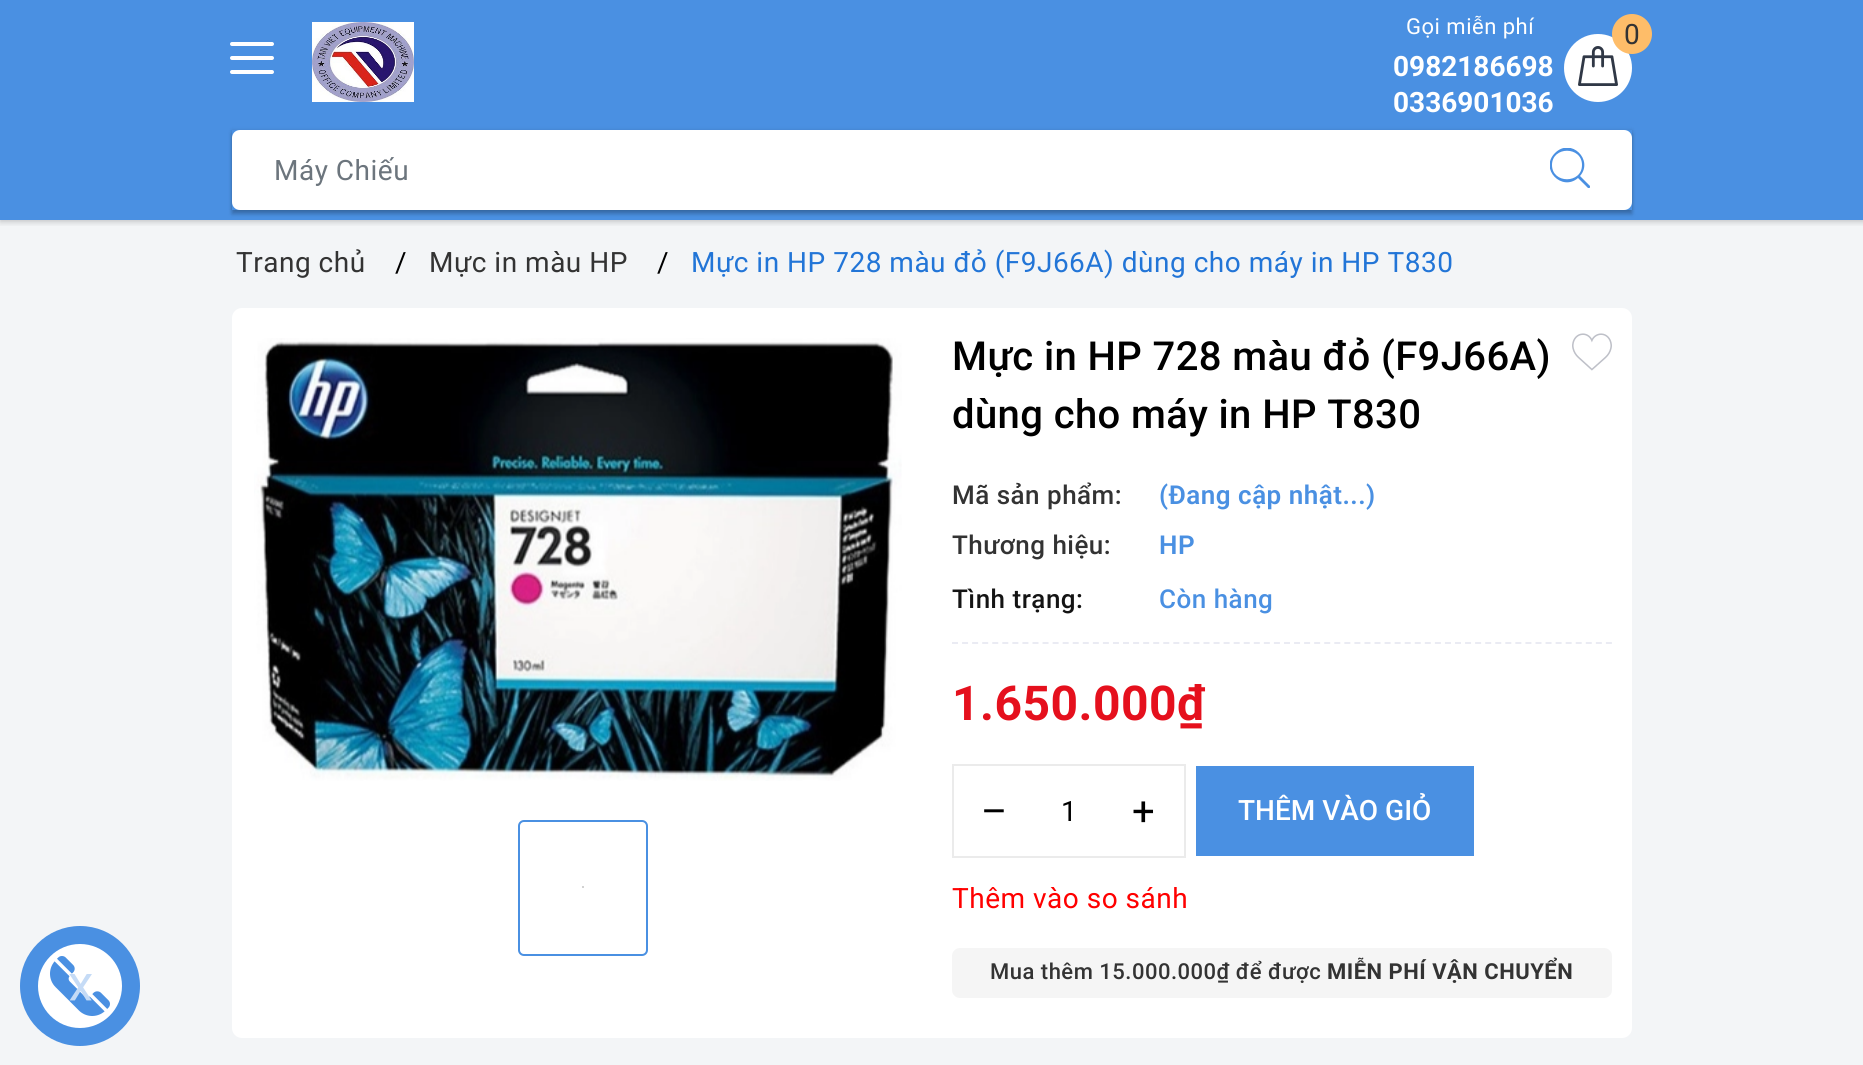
#include <cairo/cairo.h>
#include <math.h>
#include <stddef.h>


static void draw_spaced(cairo_t *cr, double x, double y, const char *s, double letter, double word) {
  cairo_move_to(cr, x, y);
  while (*s) {
    char ch[5] = {0};
    int n = 0;
    do ch[n++] = *s++; while ((*s & 0xC0) == 0x80);
    cairo_show_text(cr, ch);
    cairo_rel_move_to(cr, letter + word * (*ch == ' '), 0);
  }
}

static void rounded_rect(cairo_t *cr, double x, double y, double w, double h, double r) {
  cairo_new_sub_path(cr);
  cairo_arc(cr, x + w - r, y + h - r, r, 0, M_PI / 2);
  cairo_arc(cr, x + r, y + h - r, r, M_PI / 2, M_PI);
  cairo_arc(cr, x + r, y + r, r, M_PI, 1.5 * M_PI);
  cairo_arc(cr, x + w - r, y + r, r, 1.5 * M_PI, 2 * M_PI);
  cairo_close_path(cr);
}

static void draw_shadow(cairo_t *cr, double x, double y, double w, double h, double r, double blur, double alpha) {
  cairo_push_group_with_content(cr, CAIRO_CONTENT_ALPHA);
  cairo_set_operator(cr, CAIRO_OPERATOR_SOURCE);
  for (int i = 15; i >= -15 && fmin(w, h) + blur * i / 3 > 0; i -= 2) {
    double e = blur * i / 6;
    cairo_set_source_rgba(cr, 0, 0, 0, alpha * erfc((i - 1) / 8.5) / 2);
    rounded_rect(cr, x - e, y - e, w + 2 * e, h + 2 * e, fmax(0, fmin(r + e + blur * .6, fmin(w, h) / 2 + e)));
    cairo_fill(cr);
  }
  cairo_pattern_t *soft = cairo_pop_group(cr);
  cairo_mask(cr, soft);
  cairo_pattern_destroy(soft);
}

static void draw_image(cairo_t *cr, const char *path, double x, double y, double w, double h) {
  cairo_surface_t *image = cairo_image_surface_create_from_png(path);
  cairo_save(cr);
  cairo_set_source_surface(cr, image, x, y);
  cairo_rectangle(cr, x, y, w, h);
  cairo_fill(cr);
  cairo_restore(cr);
  cairo_surface_destroy(image);
}

static void draw(cairo_t *cr) {
  cairo_set_source_rgb(cr, 243 / 255.0, 245 / 255.0, 247 / 255.0);
  cairo_paint(cr);
  cairo_set_source_rgb(cr, 74 / 255.0, 144 / 255.0, 226 / 255.0);
  cairo_rectangle(cr, 0, 0, 1863, 220);
  cairo_fill(cr);
  cairo_save(cr);
  cairo_rectangle(cr, 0, 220, 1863, 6);
  cairo_clip(cr);
  cairo_set_source_rgb(cr, 0, 0, 0);
  draw_shadow(cr, 0, 2, 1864, 220, 0, 3, 0.2);
  cairo_restore(cr);
  draw_image(cr, "images/1.png", 312, 22, 102, 80);
  cairo_set_source_rgb(cr, 1, 1, 1);
  cairo_arc(cr, 1598, 68, 34, 0, 2 * M_PI);
  cairo_fill(cr);
  draw_image(cr, "images/2.png", 1578, 46, 40, 40);
  cairo_set_source_rgb(cr, 254 / 255.0, 189 / 255.0, 105 / 255.0);
  cairo_arc(cr, 1632, 34, 20, 0, 2 * M_PI);
  cairo_fill(cr);
  cairo_set_source_rgb(cr, 1, 1, 1);
  rounded_rect(cr, 230, 42, 44, 4, 2);
  cairo_fill(cr);
  rounded_rect(cr, 230, 56, 44, 4, 2);
  cairo_fill(cr);
  rounded_rect(cr, 230, 70, 44, 4, 2);
  cairo_fill(cr);
  cairo_save(cr);
  cairo_set_fill_rule(cr, CAIRO_FILL_RULE_EVEN_ODD);
  cairo_new_path(cr);
  cairo_move_to(cr, 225, 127);
  cairo_line_to(cr, 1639, 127);
  cairo_line_to(cr, 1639, 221);
  cairo_line_to(cr, 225, 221);
  cairo_close_path(cr);
  cairo_move_to(cr, 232, 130);
  cairo_line_to(cr, 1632, 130);
  cairo_line_to(cr, 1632, 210);
  cairo_line_to(cr, 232, 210);
  cairo_close_path(cr);
  cairo_clip(cr);
  cairo_set_source_rgb(cr, 0, 0, 0);
  draw_shadow(cr, 232, 134, 1400, 80, 0, 2, 0.24);
  cairo_restore(cr);
  cairo_save(cr);
  cairo_set_fill_rule(cr, CAIRO_FILL_RULE_EVEN_ODD);
  cairo_new_path(cr);
  cairo_move_to(cr, 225, 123);
  cairo_line_to(cr, 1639, 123);
  cairo_line_to(cr, 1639, 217);
  cairo_line_to(cr, 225, 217);
  cairo_close_path(cr);
  cairo_move_to(cr, 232, 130);
  cairo_line_to(cr, 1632, 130);
  cairo_line_to(cr, 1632, 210);
  cairo_line_to(cr, 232, 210);
  cairo_close_path(cr);
  cairo_clip(cr);
  cairo_set_source_rgb(cr, 0, 0, 0);
  draw_shadow(cr, 232, 130, 1400, 80, 0, 2, 0.12);
  cairo_restore(cr);
  cairo_new_path(cr);
  cairo_move_to(cr, 240, 131);
  cairo_line_to(cr, 1509, 131);
  cairo_line_to(cr, 1509, 209);
  cairo_line_to(cr, 240, 209);
  cairo_curve_to(cr, 236, 209, 233, 206, 233, 202);
  cairo_line_to(cr, 233, 138);
  cairo_curve_to(cr, 233, 134, 236, 131, 240, 131);
  cairo_close_path(cr);
  cairo_fill_preserve(cr);
  cairo_stroke(cr);
  cairo_new_path(cr);
  cairo_move_to(cr, 1509, 131);
  cairo_line_to(cr, 1624, 131);
  cairo_curve_to(cr, 1628, 131, 1631, 134, 1631, 138);
  cairo_line_to(cr, 1631, 202);
  cairo_curve_to(cr, 1631, 206, 1628, 209, 1624, 209);
  cairo_line_to(cr, 1509, 209);
  cairo_close_path(cr);
  cairo_fill_preserve(cr);
  cairo_stroke(cr);
  cairo_save(cr);
  cairo_rectangle(cr, 1550, 148, 40, 40);
  cairo_clip(cr);
  cairo_set_source_rgb(cr, 74 / 255.0, 144 / 255.0, 226 / 255.0);
  cairo_new_path(cr);
  cairo_move_to(cr, 1590, 186);
  cairo_line_to(cr, 1580, 176);
  cairo_curve_to(cr, 1594, 160, 1571, 137, 1555, 153);
  cairo_curve_to(cr, 1539, 169, 1562, 192, 1578, 178);
  cairo_line_to(cr, 1588, 188);
  cairo_curve_to(cr, 1589, 189, 1591, 187, 1590, 186);
  cairo_close_path(cr);
  cairo_move_to(cr, 1552, 165);
  cairo_curve_to(cr, 1552, 146, 1582, 146, 1582, 165);
  cairo_curve_to(cr, 1582, 184, 1552, 184, 1552, 165);
  cairo_close_path(cr);
  cairo_fill(cr);
  cairo_restore(cr);
  rounded_rect(cr, 232, 308, 1400, 730, 10);
  cairo_fill(cr);
  draw_image(cr, "images/3.png", 254, 338, 648, 443);
  rounded_rect(cr, 519, 821, 128, 134, 5);
  cairo_set_source_rgb(cr, 74 / 255.0, 144 / 255.0, 226 / 255.0);
  cairo_stroke(cr);
  cairo_set_source_rgb(cr, 210 / 255.0, 210 / 255.0, 210 / 255.0);
  cairo_rectangle(cr, 582, 886, 2, 2);
  cairo_fill(cr);
  draw_image(cr, "images/4.png", 1572, 333, 40, 38);
  cairo_new_path(cr);
  cairo_move_to(cr, 952, 643);
  cairo_line_to(cr, 1612, 643);
  cairo_set_source_rgb(cr, 234 / 255.0, 235 / 255.0, 243 / 255.0);
  cairo_set_dash(cr, (double[]){6, 4.06}, 2, 0);
  cairo_stroke(cr);
  cairo_rectangle(cr, 953, 765, 232, 92);
  cairo_set_source_rgb(cr, 235 / 255.0, 235 / 255.0, 235 / 255.0);
  cairo_set_dash(cr, NULL, 0, 0);
  cairo_stroke(cr);
  cairo_set_source_rgb(cr, 74 / 255.0, 144 / 255.0, 226 / 255.0);
  cairo_rectangle(cr, 1196, 766, 278, 90);
  cairo_fill(cr);
  cairo_set_source_rgb(cr, 245 / 255.0, 245 / 255.0, 245 / 255.0);
  rounded_rect(cr, 952, 948, 660, 50, 8);
  cairo_fill(cr);
  cairo_set_source_rgb(cr, 74 / 255.0, 144 / 255.0, 226 / 255.0);
  cairo_arc(cr, 80, 986, 60, 0, 2 * M_PI);
  cairo_fill(cr);
  cairo_set_source_rgb(cr, 1, 1, 1);
  cairo_arc(cr, 80, 986, 42, 0, 2 * M_PI);
  cairo_fill(cr);
  draw_image(cr, "images/5.png", 50, 956, 60, 60);
  cairo_select_font_face(cr, "Roboto", CAIRO_FONT_SLANT_NORMAL, CAIRO_FONT_WEIGHT_NORMAL);
  cairo_set_font_size(cr, 22);
  draw_spaced(cr, 1406, 34, "Gọi miễn phí", 0.5, 0);
  cairo_set_font_size(cr, 28);
  cairo_set_source_rgb(cr, 51 / 255.0, 51 / 255.0, 51 / 255.0);
  draw_spaced(cr, 1624, 44, "0", 0.5, 0);
  cairo_select_font_face(cr, "Roboto", CAIRO_FONT_SLANT_NORMAL, CAIRO_FONT_WEIGHT_BOLD);
  cairo_set_source_rgb(cr, 1, 1, 1);
  cairo_move_to(cr, 1393, 76);
  cairo_show_text(cr, "0982186698");
  cairo_move_to(cr, 1393, 112);
  cairo_show_text(cr, "0336901036");
  cairo_select_font_face(cr, "Roboto", CAIRO_FONT_SLANT_NORMAL, CAIRO_FONT_WEIGHT_NORMAL);
  cairo_set_source_rgb(cr, 108 / 255.0, 117 / 255.0, 125 / 255.0);
  draw_spaced(cr, 274, 180, "Máy Chiếu", 0.5, 0);
  cairo_set_source_rgb(cr, 51 / 255.0, 51 / 255.0, 51 / 255.0);
  draw_spaced(cr, 236, 272, "Trang chủ", 0.5, 0);
  cairo_set_source_rgb(cr, 0, 0, 0);
  draw_spaced(cr, 395, 272, "/", 0.5, 0);
  cairo_set_source_rgb(cr, 51 / 255.0, 51 / 255.0, 51 / 255.0);
  draw_spaced(cr, 429, 272, "Mực in màu HP", 0.5, 0);
  cairo_set_source_rgb(cr, 0, 0, 0);
  draw_spaced(cr, 657, 272, "/", 0.5, 0);
  cairo_set_source_rgb(cr, 34 / 255.0, 117 / 255.0, 215 / 255.0);
  draw_spaced(cr, 691, 272, "Mực in HP 728 màu đỏ (F9J66A) dùng cho máy in HP T830", 0.5, 0);
  cairo_select_font_face(cr, "Roboto Medium", CAIRO_FONT_SLANT_NORMAL, CAIRO_FONT_WEIGHT_NORMAL);
  cairo_set_font_size(cr, 40);
  cairo_set_source_rgb(cr, 0, 0, 0);
  draw_spaced(cr, 952, 370, "Mực in HP 728 màu đỏ (F9J66A)", 0.4, 0);
  draw_spaced(cr, 952, 428, "dùng cho máy in HP T830", 0.4, 0);
  cairo_set_font_size(cr, 26);
  cairo_set_source_rgb(cr, 51 / 255.0, 51 / 255.0, 51 / 255.0);
  draw_spaced(cr, 952, 504, "Mã sản phẩm:", 0.5, 0);
  cairo_select_font_face(cr, "Roboto SemiBold", CAIRO_FONT_SLANT_NORMAL, CAIRO_FONT_WEIGHT_NORMAL);
  cairo_set_source_rgb(cr, 74 / 255.0, 144 / 255.0, 226 / 255.0);
  draw_spaced(cr, 1159, 504, "(Đang cập nhật...)", 0.5, 0);
  cairo_select_font_face(cr, "Roboto Medium", CAIRO_FONT_SLANT_NORMAL, CAIRO_FONT_WEIGHT_NORMAL);
  cairo_set_source_rgb(cr, 51 / 255.0, 51 / 255.0, 51 / 255.0);
  draw_spaced(cr, 952, 554, "Thương hiệu:", 0.5, 0);
  cairo_select_font_face(cr, "Roboto SemiBold", CAIRO_FONT_SLANT_NORMAL, CAIRO_FONT_WEIGHT_NORMAL);
  cairo_set_source_rgb(cr, 74 / 255.0, 144 / 255.0, 226 / 255.0);
  draw_spaced(cr, 1159, 554, "HP", 0.5, 0);
  cairo_select_font_face(cr, "Roboto Medium", CAIRO_FONT_SLANT_NORMAL, CAIRO_FONT_WEIGHT_NORMAL);
  cairo_set_source_rgb(cr, 20 / 255.0, 20 / 255.0, 20 / 255.0);
  draw_spaced(cr, 952, 608, "Tình trạng:", 0.5, 0);
  cairo_set_source_rgb(cr, 74 / 255.0, 144 / 255.0, 226 / 255.0);
  draw_spaced(cr, 1159, 608, "Còn hàng", 0.5, 0);
  cairo_select_font_face(cr, "Roboto", CAIRO_FONT_SLANT_NORMAL, CAIRO_FONT_WEIGHT_BOLD);
  cairo_set_font_size(cr, 48);
  cairo_set_source_rgb(cr, 229 / 255.0, 16 / 255.0, 29 / 255.0);
  draw_spaced(cr, 952, 720, "1.650.000₫", 0.5, 0);
  cairo_select_font_face(cr, "Roboto", CAIRO_FONT_SLANT_NORMAL, CAIRO_FONT_WEIGHT_NORMAL);
  cairo_set_font_size(cr, 40);
  cairo_set_source_rgb(cr, 0, 0, 0);
  draw_spaced(cr, 981, 825, "–", 0.5, 0);
  cairo_set_font_size(cr, 28);
  draw_spaced(cr, 1061, 821, "1", 0.5, 0);
  cairo_set_font_size(cr, 40);
  draw_spaced(cr, 1132, 825, "+", 0.5, 0);
  cairo_select_font_face(cr, "Roboto Medium", CAIRO_FONT_SLANT_NORMAL, CAIRO_FONT_WEIGHT_NORMAL);
  cairo_set_font_size(cr, 28);
  cairo_set_source_rgb(cr, 1, 1, 1);
  cairo_move_to(cr, 1238, 820);
  cairo_show_text(cr, "THÊM VÀO GIỎ");
  cairo_select_font_face(cr, "Roboto", CAIRO_FONT_SLANT_NORMAL, CAIRO_FONT_WEIGHT_NORMAL);
  cairo_set_source_rgb(cr, 1, 0, 0);
  draw_spaced(cr, 952, 908, "Thêm vào so sánh", 0.5, 0);
  cairo_select_font_face(cr, "Roboto Medium", CAIRO_FONT_SLANT_NORMAL, CAIRO_FONT_WEIGHT_NORMAL);
  cairo_set_font_size(cr, 22);
  cairo_set_source_rgb(cr, 51 / 255.0, 51 / 255.0, 51 / 255.0);
  draw_spaced(cr, 990, 979, "Mua thêm 15.000.000₫ để được", 0.5, 0);
  cairo_select_font_face(cr, "Roboto", CAIRO_FONT_SLANT_NORMAL, CAIRO_FONT_WEIGHT_BOLD);
  draw_spaced(cr, 1327, 979, "MIỄN PHÍ VẬN CHUYỂN", 0.5, 0);
  cairo_select_font_face(cr, "Roboto", CAIRO_FONT_SLANT_NORMAL, CAIRO_FONT_WEIGHT_NORMAL);
  cairo_set_font_size(cr, 50);
  cairo_set_source_rgb(cr, 197 / 255.0, 219 / 255.0, 246 / 255.0);
  cairo_save(cr);
  cairo_translate(cr, 93, 974);
  cairo_rotate(cr, 180 * M_PI / 180);
  draw_spaced(cr, 0, 0, "x", 0.5, 0);
  cairo_restore(cr);
}

int main(void) {
  cairo_surface_t *surface = cairo_image_surface_create(CAIRO_FORMAT_RGB24, 1863, 1065);
  cairo_t *cr = cairo_create(surface);
  cairo_font_options_t *options = cairo_font_options_create();
  cairo_font_options_set_hint_metrics(options, CAIRO_HINT_METRICS_OFF);
  cairo_font_options_set_hint_style(options, CAIRO_HINT_STYLE_NONE);
  cairo_set_font_options(cr, options);
  cairo_set_miter_limit(cr, 4);
  draw(cr);
  cairo_surface_write_to_png(surface, "out.png");
  cairo_font_options_destroy(options);
  cairo_destroy(cr);
  cairo_surface_destroy(surface);
  return 0;
}
